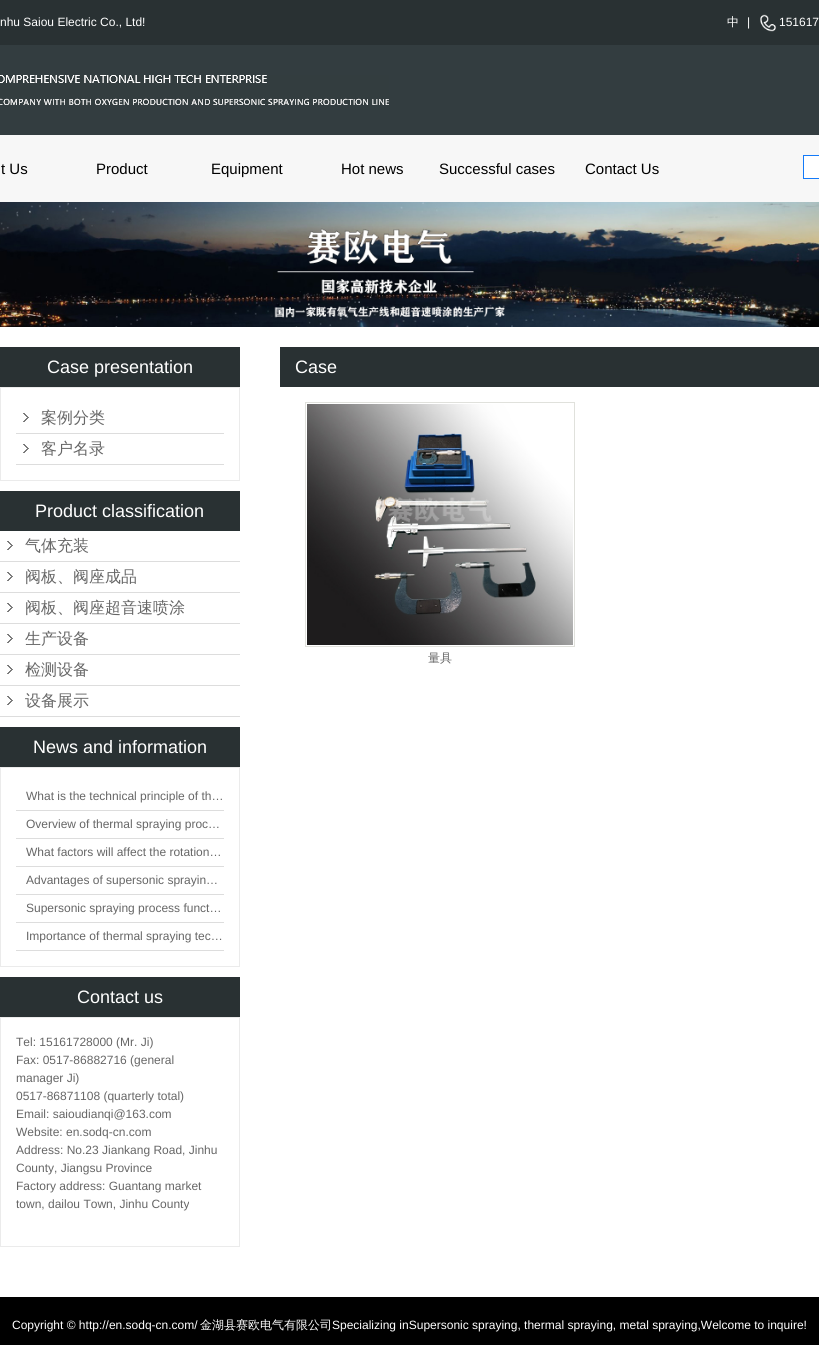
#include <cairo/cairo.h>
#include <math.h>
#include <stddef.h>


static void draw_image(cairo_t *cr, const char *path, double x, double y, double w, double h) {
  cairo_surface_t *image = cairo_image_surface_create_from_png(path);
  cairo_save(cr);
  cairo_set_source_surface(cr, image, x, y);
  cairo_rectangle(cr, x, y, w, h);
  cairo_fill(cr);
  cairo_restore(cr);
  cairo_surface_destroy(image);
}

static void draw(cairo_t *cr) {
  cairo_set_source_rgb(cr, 1, 1, 1);
  cairo_paint(cr);
  cairo_set_source_rgb(cr, 41 / 255.0, 49 / 255.0, 51 / 255.0);
  cairo_rectangle(cr, 0, 0, 819, 45);
  cairo_fill(cr);
  draw_image(cr, "images/1.png", 760, 14, 17, 18);
  cairo_set_source_rgb(cr, 51 / 255.0, 61 / 255.0, 64 / 255.0);
  cairo_rectangle(cr, 0, 45, 819, 90);
  cairo_fill(cr);
  draw_image(cr, "images/2.png", 0, 75, 389, 30);
  cairo_set_source_rgb(cr, 247 / 255.0, 247 / 255.0, 247 / 255.0);
  cairo_rectangle(cr, 0, 135, 819, 67);
  cairo_fill(cr);
  cairo_set_source_rgb(cr, 1, 1, 1);
  cairo_rectangle(cr, 803.5, 155.5, 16, 23);
  cairo_fill_preserve(cr);
  cairo_set_source_rgb(cr, 19 / 255.0, 122 / 255.0, 249 / 255.0);
  cairo_set_line_width(cr, 1);
  cairo_stroke(cr);
  draw_image(cr, "images/3.png", 0, 202, 819, 125);
  cairo_set_source_rgb(cr, 41 / 255.0, 49 / 255.0, 51 / 255.0);
  cairo_rectangle(cr, 0, 347, 240, 40);
  cairo_fill(cr);
  cairo_rectangle(cr, 0.5, 387.5, 239, 93);
  cairo_set_source_rgb(cr, 235 / 255.0, 235 / 255.0, 235 / 255.0);
  cairo_stroke(cr);
  draw_image(cr, "images/4.png", 23, 413, 6, 9);
  cairo_set_source_rgb(cr, 221 / 255.0, 221 / 255.0, 221 / 255.0);
  cairo_rectangle(cr, 16, 433, 208, 1);
  cairo_fill(cr);
  draw_image(cr, "images/4.png", 23, 444, 6, 9);
  cairo_rectangle(cr, 16, 464, 208, 1);
  cairo_fill(cr);
  cairo_set_source_rgb(cr, 41 / 255.0, 49 / 255.0, 51 / 255.0);
  cairo_rectangle(cr, 0, 491, 240, 40);
  cairo_fill(cr);
  draw_image(cr, "images/4.png", 7, 541, 6, 9);
  cairo_set_source_rgb(cr, 221 / 255.0, 221 / 255.0, 221 / 255.0);
  cairo_rectangle(cr, 0, 561, 240, 1);
  cairo_fill(cr);
  draw_image(cr, "images/4.png", 7, 572, 6, 9);
  cairo_rectangle(cr, 0, 592, 240, 1);
  cairo_fill(cr);
  draw_image(cr, "images/4.png", 7, 603, 6, 9);
  cairo_rectangle(cr, 0, 623, 240, 1);
  cairo_fill(cr);
  draw_image(cr, "images/4.png", 7, 634, 6, 9);
  cairo_rectangle(cr, 0, 654, 240, 1);
  cairo_fill(cr);
  draw_image(cr, "images/4.png", 7, 665, 6, 9);
  cairo_rectangle(cr, 0, 685, 240, 1);
  cairo_fill(cr);
  draw_image(cr, "images/4.png", 7, 696, 6, 9);
  cairo_rectangle(cr, 0, 716, 240, 1);
  cairo_fill(cr);
  cairo_set_source_rgb(cr, 41 / 255.0, 49 / 255.0, 51 / 255.0);
  cairo_rectangle(cr, 0, 727, 240, 40);
  cairo_fill(cr);
  cairo_rectangle(cr, 0.5, 767.5, 239, 199);
  cairo_set_source_rgb(cr, 235 / 255.0, 235 / 255.0, 235 / 255.0);
  cairo_stroke(cr);
  cairo_set_source_rgb(cr, 221 / 255.0, 221 / 255.0, 221 / 255.0);
  cairo_rectangle(cr, 16, 810, 208, 1);
  cairo_fill(cr);
  cairo_rectangle(cr, 16, 838, 208, 1);
  cairo_fill(cr);
  cairo_rectangle(cr, 16, 866, 208, 1);
  cairo_fill(cr);
  cairo_rectangle(cr, 16, 894, 208, 1);
  cairo_fill(cr);
  cairo_rectangle(cr, 16, 922, 208, 1);
  cairo_fill(cr);
  cairo_rectangle(cr, 16, 950, 208, 1);
  cairo_fill(cr);
  cairo_set_source_rgb(cr, 41 / 255.0, 49 / 255.0, 51 / 255.0);
  cairo_rectangle(cr, 0, 977, 240, 40);
  cairo_fill(cr);
  cairo_rectangle(cr, 0.5, 1017.5, 239, 229);
  cairo_set_source_rgb(cr, 235 / 255.0, 235 / 255.0, 235 / 255.0);
  cairo_stroke(cr);
  cairo_set_source_rgb(cr, 41 / 255.0, 49 / 255.0, 51 / 255.0);
  cairo_rectangle(cr, 280, 347, 539, 40);
  cairo_fill(cr);
  cairo_rectangle(cr, 305.5, 402.5, 269, 244);
  cairo_set_source_rgb(cr, 224 / 255.0, 225 / 255.0, 220 / 255.0);
  cairo_stroke(cr);
  draw_image(cr, "images/5.png", 307, 404, 266, 241);
  cairo_set_source_rgb(cr, 0, 0, 0);
  cairo_rectangle(cr, 0, 1297, 819, 48);
  cairo_fill(cr);
  cairo_select_font_face(cr, "Liberation Sans", CAIRO_FONT_SLANT_NORMAL, CAIRO_FONT_WEIGHT_NORMAL);
  cairo_set_font_size(cr, 12);
  cairo_set_source_rgb(cr, 1, 1, 1);
  cairo_move_to(cr, 0, 26);
  cairo_show_text(cr, "nhu Saiou Electric Co., Ltd!");
  cairo_select_font_face(cr, "WenQuanYi Zen Hei Medium", CAIRO_FONT_SLANT_NORMAL, CAIRO_FONT_WEIGHT_NORMAL);
  cairo_move_to(cr, 727, 26);
  cairo_show_text(cr, "中");
  cairo_select_font_face(cr, "Liberation Sans", CAIRO_FONT_SLANT_NORMAL, CAIRO_FONT_WEIGHT_NORMAL);
  cairo_move_to(cr, 747, 26);
  cairo_show_text(cr, "|");
  cairo_move_to(cr, 779, 26);
  cairo_show_text(cr, "151617");
  cairo_set_font_size(cr, 15);
  cairo_set_source_rgb(cr, 0, 0, 0);
  cairo_move_to(cr, 1, 174);
  cairo_show_text(cr, "t Us");
  cairo_move_to(cr, 96, 174);
  cairo_show_text(cr, "Product");
  cairo_move_to(cr, 211, 174);
  cairo_show_text(cr, "Equipment");
  cairo_move_to(cr, 341, 174);
  cairo_show_text(cr, "Hot news");
  cairo_move_to(cr, 439, 174);
  cairo_show_text(cr, "Successful cases");
  cairo_move_to(cr, 585, 174);
  cairo_show_text(cr, "Contact Us");
  cairo_set_font_size(cr, 18);
  cairo_set_source_rgb(cr, 1, 1, 1);
  cairo_move_to(cr, 47, 373);
  cairo_show_text(cr, "Case presentation");
  cairo_select_font_face(cr, "WenQuanYi Zen Hei Medium", CAIRO_FONT_SLANT_NORMAL, CAIRO_FONT_WEIGHT_NORMAL);
  cairo_set_font_size(cr, 16);
  cairo_set_source_rgb(cr, 102 / 255.0, 102 / 255.0, 102 / 255.0);
  cairo_move_to(cr, 41, 423);
  cairo_show_text(cr, "案例分类");
  cairo_move_to(cr, 41, 454);
  cairo_show_text(cr, "客户名录");
  cairo_select_font_face(cr, "Liberation Sans", CAIRO_FONT_SLANT_NORMAL, CAIRO_FONT_WEIGHT_NORMAL);
  cairo_set_font_size(cr, 18);
  cairo_set_source_rgb(cr, 1, 1, 1);
  cairo_move_to(cr, 35, 517);
  cairo_show_text(cr, "Product classification");
  cairo_select_font_face(cr, "WenQuanYi Zen Hei Medium", CAIRO_FONT_SLANT_NORMAL, CAIRO_FONT_WEIGHT_NORMAL);
  cairo_set_font_size(cr, 16);
  cairo_set_source_rgb(cr, 102 / 255.0, 102 / 255.0, 102 / 255.0);
  cairo_move_to(cr, 25, 551);
  cairo_show_text(cr, "气体充装");
  cairo_move_to(cr, 25, 582);
  cairo_show_text(cr, "阀板、阀座成品");
  cairo_move_to(cr, 25, 613);
  cairo_show_text(cr, "阀板、阀座超音速喷涂");
  cairo_move_to(cr, 25, 644);
  cairo_show_text(cr, "生产设备");
  cairo_move_to(cr, 25, 675);
  cairo_show_text(cr, "检测设备");
  cairo_move_to(cr, 25, 706);
  cairo_show_text(cr, "设备展示");
  cairo_select_font_face(cr, "Liberation Sans", CAIRO_FONT_SLANT_NORMAL, CAIRO_FONT_WEIGHT_NORMAL);
  cairo_set_font_size(cr, 18);
  cairo_set_source_rgb(cr, 1, 1, 1);
  cairo_move_to(cr, 33, 753);
  cairo_show_text(cr, "News and information");
  cairo_set_font_size(cr, 12);
  cairo_set_source_rgb(cr, 102 / 255.0, 102 / 255.0, 102 / 255.0);
  cairo_move_to(cr, 26, 800);
  cairo_show_text(cr, "What is the technical principle of th…");
  cairo_move_to(cr, 26, 828);
  cairo_show_text(cr, "Overview of thermal spraying proc…");
  cairo_move_to(cr, 26, 856);
  cairo_show_text(cr, "What factors will affect the rotation…");
  cairo_move_to(cr, 26, 884);
  cairo_show_text(cr, "Advantages of supersonic sprayin…");
  cairo_move_to(cr, 26, 912);
  cairo_show_text(cr, "Supersonic spraying process funct…");
  cairo_move_to(cr, 26, 940);
  cairo_show_text(cr, "Importance of thermal spraying tec…");
  cairo_set_font_size(cr, 18);
  cairo_set_source_rgb(cr, 1, 1, 1);
  cairo_move_to(cr, 77, 1003);
  cairo_show_text(cr, "Contact us");
  cairo_set_font_size(cr, 12);
  cairo_set_source_rgb(cr, 102 / 255.0, 102 / 255.0, 102 / 255.0);
  cairo_move_to(cr, 16, 1046);
  cairo_show_text(cr, "Tel: 15161728000 (Mr. Ji)");
  cairo_move_to(cr, 16, 1064);
  cairo_show_text(cr, "Fax: 0517-86882716 (general");
  cairo_move_to(cr, 16, 1082);
  cairo_show_text(cr, "manager Ji)");
  cairo_move_to(cr, 16, 1100);
  cairo_show_text(cr, "0517-86871108 (quarterly total)");
  cairo_move_to(cr, 16, 1118);
  cairo_show_text(cr, "Email: saioudianqi@163.com");
  cairo_move_to(cr, 16, 1136);
  cairo_show_text(cr, "Website: en.sodq-cn.com");
  cairo_move_to(cr, 16, 1154);
  cairo_show_text(cr, "Address: No.23 Jiankang Road, Jinhu");
  cairo_move_to(cr, 16, 1172);
  cairo_show_text(cr, "County, Jiangsu Province");
  cairo_move_to(cr, 16, 1190);
  cairo_show_text(cr, "Factory address: Guantang market");
  cairo_move_to(cr, 16, 1208);
  cairo_show_text(cr, "town, dailou Town, Jinhu County");
  cairo_set_font_size(cr, 18);
  cairo_set_source_rgb(cr, 1, 1, 1);
  cairo_move_to(cr, 295, 373);
  cairo_show_text(cr, "Case");
  cairo_select_font_face(cr, "WenQuanYi Zen Hei Medium", CAIRO_FONT_SLANT_NORMAL, CAIRO_FONT_WEIGHT_NORMAL);
  cairo_set_font_size(cr, 12);
  cairo_set_source_rgb(cr, 102 / 255.0, 102 / 255.0, 102 / 255.0);
  cairo_move_to(cr, 428, 662);
  cairo_show_text(cr, "量具");
  cairo_select_font_face(cr, "Liberation Sans", CAIRO_FONT_SLANT_NORMAL, CAIRO_FONT_WEIGHT_NORMAL);
  cairo_set_source_rgb(cr, 1, 1, 1);
  cairo_move_to(cr, 12, 1329);
  cairo_show_text(cr, "Copyright © http://en.sodq-cn.com/");
  cairo_select_font_face(cr, "WenQuanYi Zen Hei Medium", CAIRO_FONT_SLANT_NORMAL, CAIRO_FONT_WEIGHT_NORMAL);
  cairo_move_to(cr, 200, 1329);
  cairo_show_text(cr, "金湖县赛欧电气有限公司");
  cairo_select_font_face(cr, "Liberation Sans", CAIRO_FONT_SLANT_NORMAL, CAIRO_FONT_WEIGHT_NORMAL);
  cairo_move_to(cr, 332, 1329);
  cairo_show_text(cr, "Specializing inSupersonic spraying, thermal spraying, metal spraying,Welcome to inquire!");
}

int main(void) {
  cairo_surface_t *surface = cairo_image_surface_create(CAIRO_FORMAT_RGB24, 819, 1345);
  cairo_t *cr = cairo_create(surface);
  cairo_font_options_t *options = cairo_font_options_create();
  cairo_font_options_set_hint_metrics(options, CAIRO_HINT_METRICS_OFF);
  cairo_font_options_set_hint_style(options, CAIRO_HINT_STYLE_NONE);
  cairo_set_font_options(cr, options);
  cairo_set_miter_limit(cr, 4);
  draw(cr);
  cairo_surface_write_to_png(surface, "out.png");
  cairo_font_options_destroy(options);
  cairo_destroy(cr);
  cairo_surface_destroy(surface);
  return 0;
}
